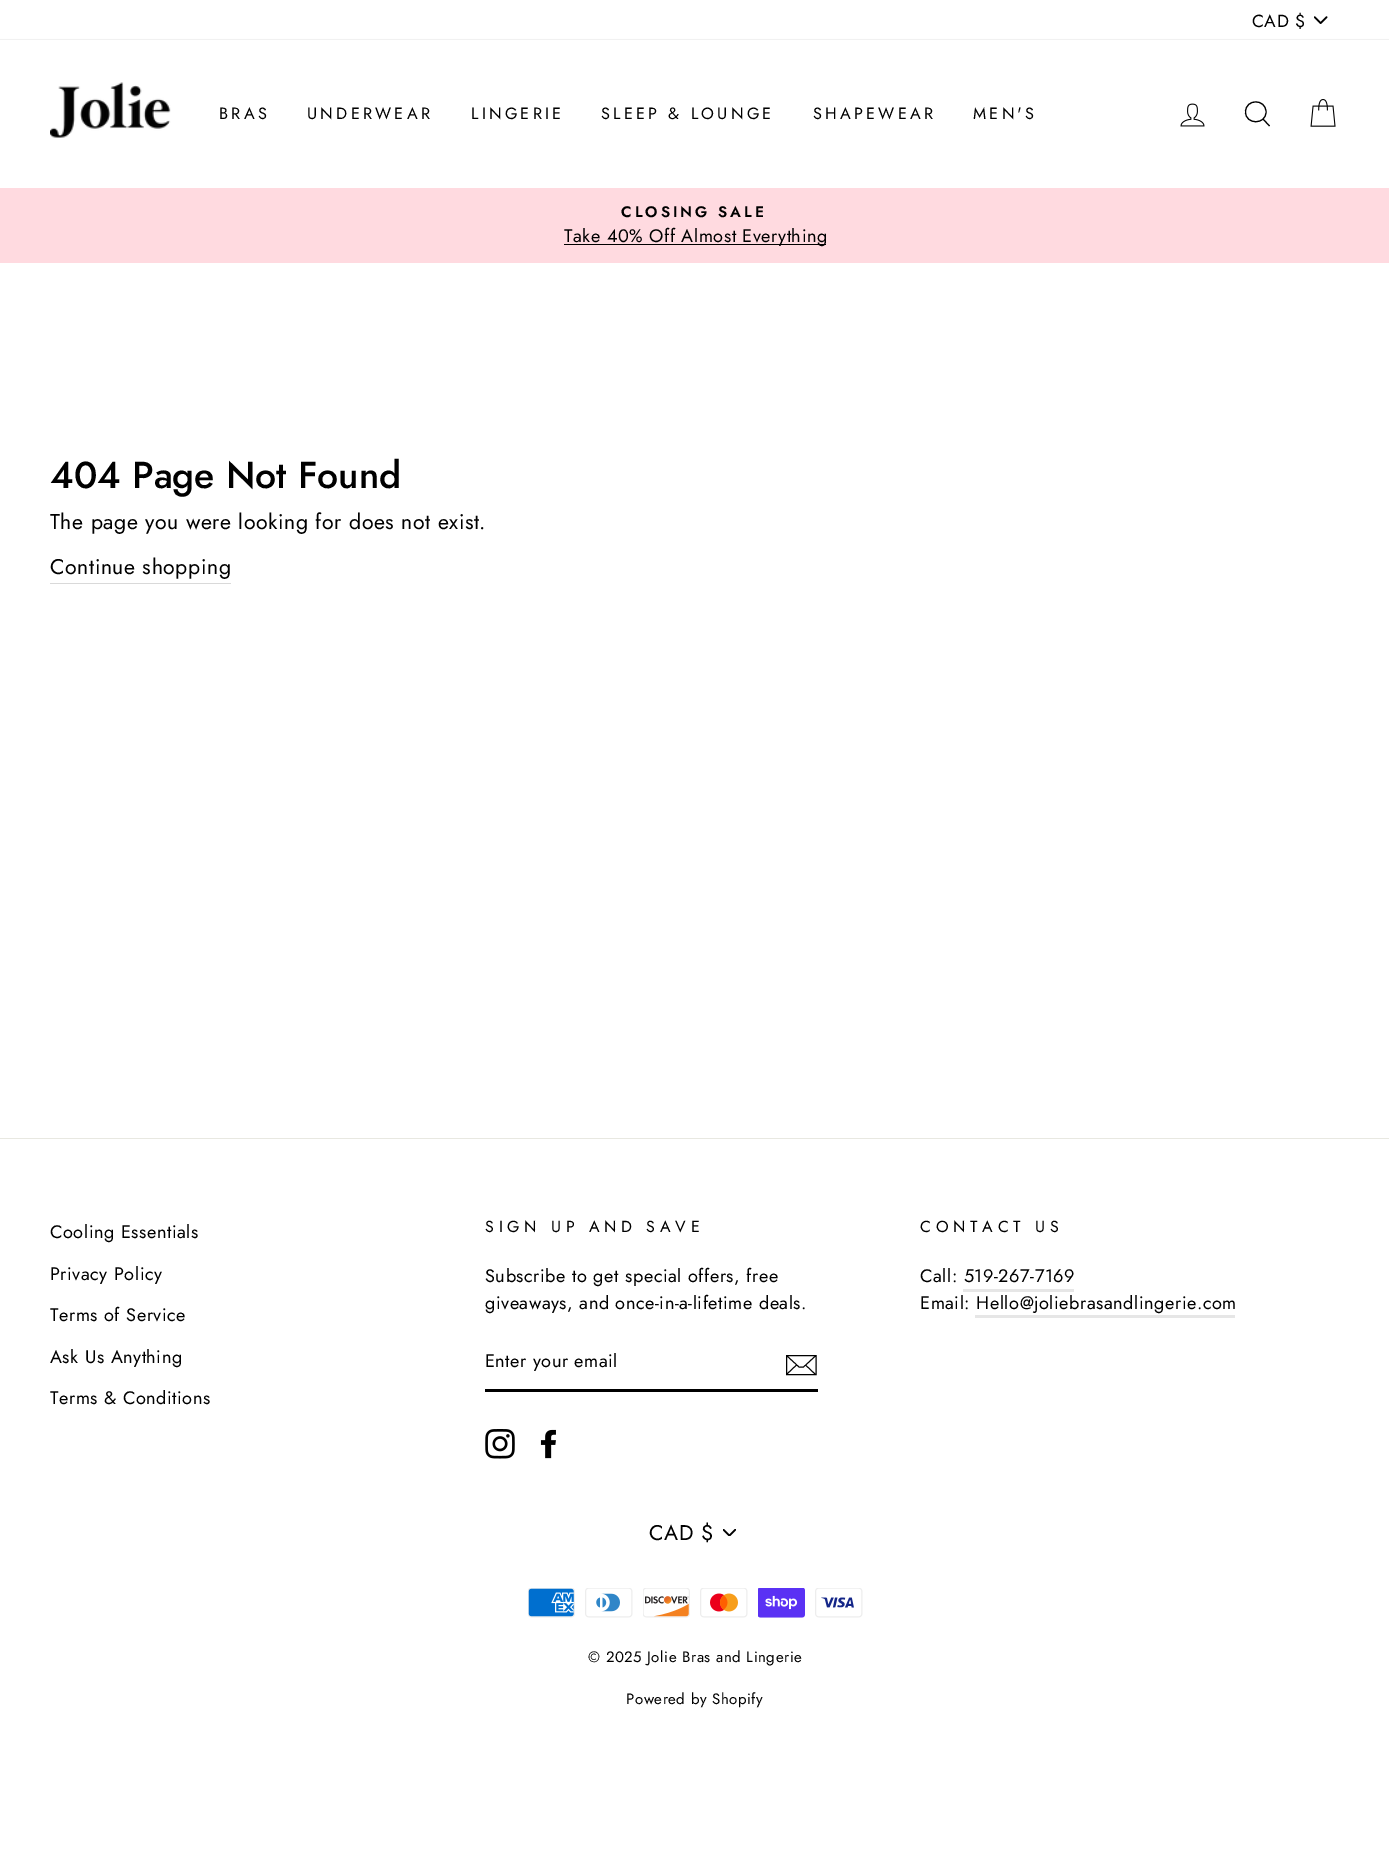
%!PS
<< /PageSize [1389 1870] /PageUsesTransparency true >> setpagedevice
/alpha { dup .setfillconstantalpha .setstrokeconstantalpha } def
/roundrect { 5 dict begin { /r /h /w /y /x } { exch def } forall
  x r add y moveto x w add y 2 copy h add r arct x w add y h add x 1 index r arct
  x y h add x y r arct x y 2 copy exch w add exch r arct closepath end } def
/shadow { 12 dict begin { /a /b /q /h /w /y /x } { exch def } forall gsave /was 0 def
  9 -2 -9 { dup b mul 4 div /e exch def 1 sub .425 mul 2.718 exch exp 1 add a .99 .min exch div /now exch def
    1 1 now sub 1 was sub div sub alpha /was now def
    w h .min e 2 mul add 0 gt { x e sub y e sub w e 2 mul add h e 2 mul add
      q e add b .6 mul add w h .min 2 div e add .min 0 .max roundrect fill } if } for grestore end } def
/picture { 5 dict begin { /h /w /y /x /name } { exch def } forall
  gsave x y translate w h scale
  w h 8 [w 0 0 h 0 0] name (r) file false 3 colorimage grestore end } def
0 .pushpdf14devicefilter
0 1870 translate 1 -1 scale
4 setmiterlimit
1 setgray
0 0 1389 1870 rectfill
(img1.rgb) 1314 16 14 8 picture
/Jost-Regular [17.5 0 0 -17.5 0 0] selectfont
0 setgray
1252 27 moveto 0.5 0 (CAD $) ashow
0 40 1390 148 0 0.5 0.2 shadow
1 setgray
0 40 1389 148 rectfill
(img2.rgb) 50 82 121 56 picture
/Jost-Regular [16.25 0 0 -16.25 0 0] selectfont
0 setgray
219 119 moveto 3.25 0 (BRAS) ashow
307 119 moveto 3.25 0 (UNDERWEAR) ashow
471 119 moveto 3.25 0 (LINGERIE) ashow
601 119 moveto 3.25 0 (SLEEP & LOUNGE) ashow
813 119 moveto 3.25 0 (SHAPEWEAR) ashow
973 119 moveto 3.25 0 (MEN'S) ashow
(img3.rgb) 1180 103 25 24 picture
1.1 setlinewidth
newpath 1266 112 moveto 1266 125 1245.5 125 1245.5 112 curveto 1245.5 98.5 1266 98.5 1266 112 curveto closepath 1269.5 126 moveto 1263 119 lineto stroke
(img4.rgb) 1310 99 26 28 picture
1 0.855 0.878 setrgbcolor
0 188 1389 75 rectfill
/Jost-SemiBold [15.25 0 0 -15.25 0 0] selectfont
0 setgray
621 217 moveto 3 0 (CLOSING SALE) ashow
564 244 262 1 rectfill
/Jost-Regular [18.1 0 0 -18.1 0 0] selectfont
564 242 moveto 0.55 0 (Take 40% Off Almost Everything) ashow
/Jost-Medium [37.5 0 0 -37.5 0 0] selectfont
50 488 moveto (404 Page Not Found) show
/Jost-Regular [21.25 0 0 -21.25 0 0] selectfont
50 529 moveto 0.55 0 (The page you were looking for does not exist.) ashow
0.851 setgray
50 583 181 1 rectfill
0 setgray
50 574 moveto 0.55 0 (Continue shopping) ashow
0.91 0.91 0.882 setrgbcolor
0 1138 1389 1 rectfill
/Jost-Regular [18.1 0 0 -18.1 0 0] selectfont
0 setgray
50 1238 moveto 0.55 0 (Cooling Essentials) ashow
50 1280 moveto 0.55 0 (Privacy Policy) ashow
50 1321 moveto 0.55 0 (Terms of Service) ashow
50 1363 moveto 0.55 0 (Ask Us Anything) ashow
50 1404 moveto 0.55 0 (Terms & Conditions) ashow
/Jost-Regular [16 0 0 -16 0 0] selectfont
485 1232 moveto 4.75 0 (SIGN UP AND SAVE) ashow
/Jost-Regular [18.1 0 0 -18.1 0 0] selectfont
485 1282 moveto 0.55 0 (Subscribe to get special offers, free) ashow
485 1309 moveto 0.55 0 (giveaways, and once-in-a-lifetime deals.) ashow
485 1389 333 3 rectfill
485 1367 moveto 0.5 0 (Enter your email) ashow
0.9 setlinewidth
newpath 816 1374.5 moveto 786.5 1374.5 lineto 786.5 1355.5 lineto 816 1355.5 lineto closepath 786.5 1355.5 moveto 799 1367 lineto 803.5 1367 lineto 816 1355.5 lineto 796.5 1365 moveto 787 1374 lineto 815.5 1374.5 moveto 805.5 1365 lineto stroke
(img5.rgb) 485 1429 30 30 picture
(img6.rgb) 540 1429 16 30 picture
/Jost-Regular [16 0 0 -16 0 0] selectfont
920 1232 moveto 4.75 0 (CONTACT US) ashow
/Jost-Regular [18.1 0 0 -18.1 0 0] selectfont
920 1282 moveto 0.55 0 (Call: 519-267-7169) ashow
0.902 setgray
963 1289 111 3 rectfill
0 setgray
920 1309 moveto 0.55 0 (Email: Hello@joliebrasandlingerie.com) ashow
0.902 setgray
975 1315 260 3 rectfill
(img7.rgb) 723 1529 13 7 picture
/Jost-Regular [21.25 0 0 -21.25 0 0] selectfont
0 setgray
649 1540 moveto 0.55 0 (CAD $) ashow
(img8.rgb) 528 1588 47 30 picture
(img9.rgb) 585 1588 48 30 picture
(img10.rgb) 643 1588 47 30 picture
(img11.rgb) 700 1588 48 30 picture
(img12.rgb) 758 1588 47 30 picture
(img13.rgb) 815 1588 48 30 picture
/Jost-Regular [15 0 0 -15 0 0] selectfont
588 1662 moveto 0.55 0 (© 2025 Jolie Bras and Lingerie) ashow
626 1704 moveto 0.55 0 (Powered by Shopify) ashow
.poppdf14devicefilter showpage
